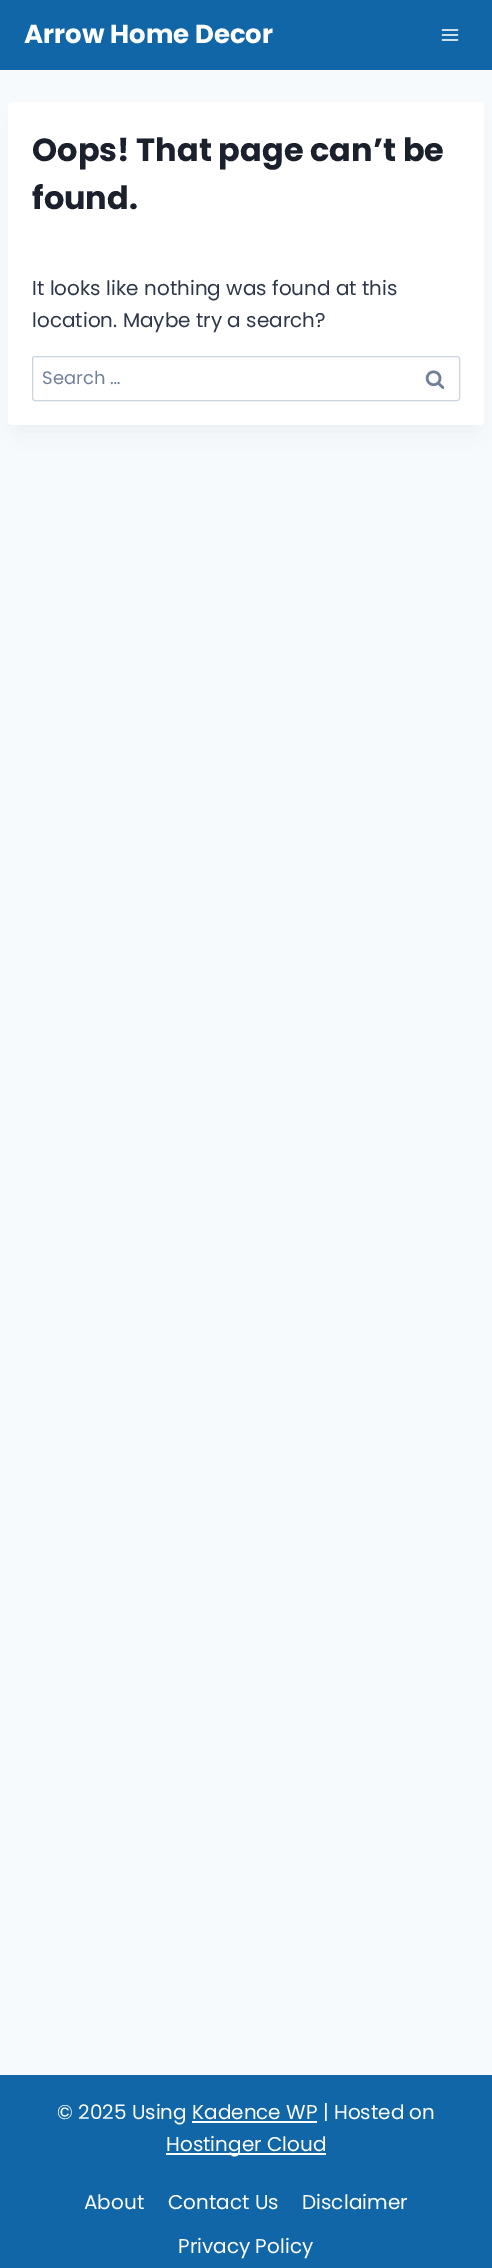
%!PS
<< /PageSize [492 2268] /PageUsesTransparency true >> setpagedevice
/alpha { dup .setfillconstantalpha .setstrokeconstantalpha } def
/roundrect { 5 dict begin { /r /h /w /y /x } { exch def } forall
  x r add y moveto x w add y 2 copy h add r arct x w add y h add x 1 index r arct
  x y h add x y r arct x y 2 copy exch w add exch r arct closepath end } def
/shadow { 12 dict begin { /a /b /q /h /w /y /x } { exch def } forall gsave /was 0 def
  9 -2 -9 { dup b mul 4 div /e exch def 1 sub .425 mul 2.718 exch exp 1 add a .99 .min exch div /now exch def
    1 1 now sub 1 was sub div sub alpha /was now def
    w h .min e 2 mul add 0 gt { x e sub y e sub w e 2 mul add h e 2 mul add
      q e add b .6 mul add w h .min 2 div e add .min 0 .max roundrect fill } if } for grestore end } def
/picture { 5 dict begin { /h /w /y /x /name } { exch def } forall
  gsave x y translate w h scale
  w h 8 [w 0 0 h 0 0] name (r) file false 3 colorimage grestore end } def
0 .pushpdf14devicefilter
0 2268 translate 1 -1 scale
4 setmiterlimit
0.969 0.98 0.988 setrgbcolor
0 0 492 2268 rectfill
0.063 0.4 0.655 setrgbcolor
0 0 492 70 rectfill
/Poppins-Bold [26 0 0 -26 0 0] selectfont
1 setgray
24 43 moveto (Arrow Home Decor) show
(img1.rgb) 441 29 18 12 picture
0 setgray
18 127 456 303 0 12.5 0.05 shadow
1 setgray
8 102 476 323 4 roundrect fill
/Poppins-Bold [32 0 0 -32 0 0] selectfont
0.102 0.125 0.173 setrgbcolor
32 161 moveto (Oops! That page can’t be) show
32 209 moveto (found.) show
/Poppins-Regular [20 0 0 -20 0 0] selectfont
0.176 0.216 0.282 setrgbcolor
32 295 moveto (It looks like nothing was found at this) show
32 327 moveto (location. Maybe try a search?) show
0.796 0.835 0.878 setrgbcolor
32.5 356.5 427 44 2.5 roundrect stroke
/Poppins-Regular [18 0 0 -18 0 0] selectfont
0.443 0.502 0.588 setrgbcolor
42 384 moveto (Search …) show
(img2.rgb) 425 370 20 19 picture
0.063 0.4 0.655 setrgbcolor
0 2075 492 193 rectfill
/Poppins-Regular [20 0 0 -20 0 0] selectfont
1 setgray
57 2119 moveto (© 2025 Using Kadence WP | Hosted on) show
192 2121 125 2 rectfill
166 2153 160 2 rectfill
166 2151 moveto (Hostinger Cloud) show
84 2209 moveto (About) show
168 2209 moveto (Contact Us) show
302 2209 moveto (Disclaimer) show
178 2253 moveto (Privacy Policy) show
.poppdf14devicefilter showpage
